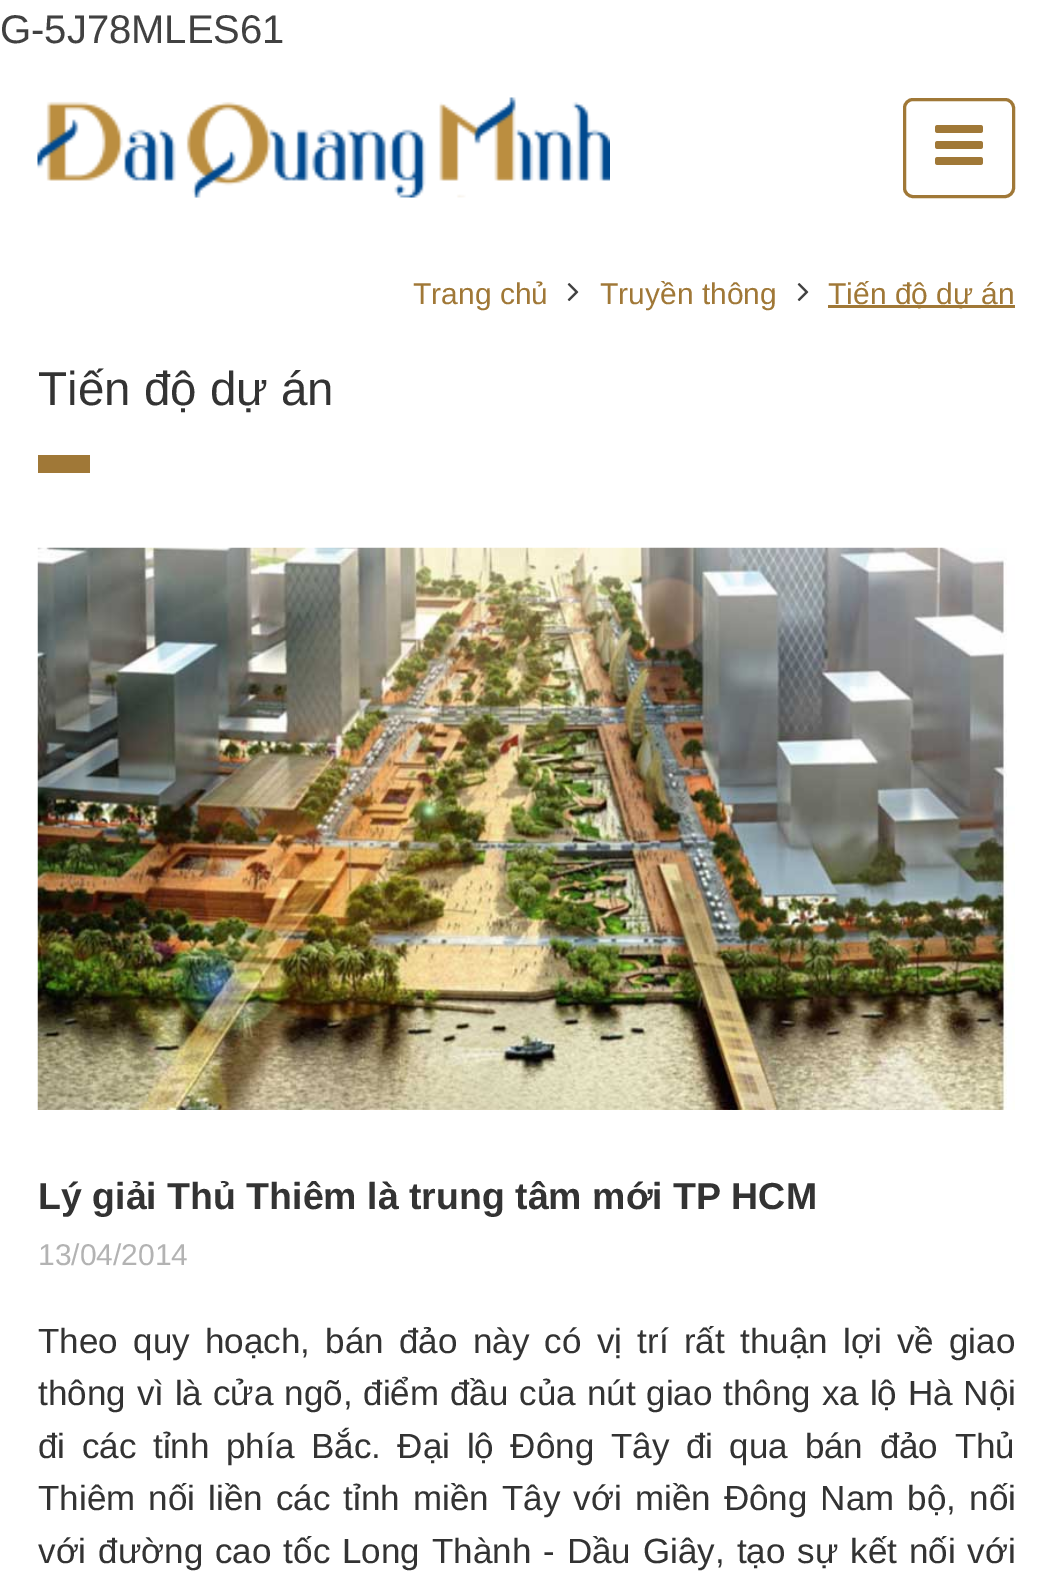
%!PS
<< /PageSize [1052 1582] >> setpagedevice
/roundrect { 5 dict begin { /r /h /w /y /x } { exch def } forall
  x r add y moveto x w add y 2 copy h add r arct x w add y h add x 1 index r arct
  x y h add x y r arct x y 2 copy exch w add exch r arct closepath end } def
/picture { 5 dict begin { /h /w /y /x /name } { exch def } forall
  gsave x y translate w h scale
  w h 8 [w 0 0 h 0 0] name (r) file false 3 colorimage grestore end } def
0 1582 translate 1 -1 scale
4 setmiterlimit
1 setgray
0 0 1052 1582 rectfill
/LiberationSans-Regular [40 0 0 -40 0 0] selectfont
0.255 setgray
0 43 moveto (G-5J78MLES61) show
(img1.rgb) 37 97 573 101 picture
0.627 0.471 0.216 setrgbcolor
3 setlinewidth
904.5 99.5 109 97 8.5 roundrect stroke
(img2.rgb) 935 125 48 40 picture
/LiberationSans-Regular [30 0 0 -30 0 0] selectfont
413 304 moveto (Trang chủ) show
(img3.rgb) 567 283 12 19 picture
600 304 moveto (Truyền thông) show
(img3.rgb) 797 283 12 19 picture
828 305 187 3 rectfill
828 304 moveto (Tiến độ dự án) show
/LiberationSans-Regular [47.5 0 0 -47.5 0 0] selectfont
0.2 setgray
38 405 moveto (Tiến độ dự án) show
0.627 0.471 0.216 setrgbcolor
38 455 52 18 rectfill
(img4.rgb) 37 547 978 563 picture
/LiberationSans-Bold [37.5 0 0 -37.5 0 0] selectfont
0.2 setgray
38 1209 moveto (Lý giải Thủ Thiêm là trung tâm mới TP HCM) show
/LiberationSans-Regular [30 0 0 -30 0 0] selectfont
0.702 setgray
38 1265 moveto (13/04/2014) show
/LiberationSans-Regular [35 0 0 -35 0 0] selectfont
0.2 setgray
38 1353 moveto 5.6 0 32 (Theo quy hoạch, bán đảo này có vị trí rất thuận lợi về giao) widthshow
38 1405 moveto 1.2 0 32 (thông vì là cửa ngõ, điểm đầu của nút giao thông xa lộ Hà Nội) widthshow
38 1458 moveto 6.9 0 32 (đi các tỉnh phía Bắc. Đại lộ Đông Tây đi qua bán đảo Thủ) widthshow
38 1510 moveto 3.4 0 32 (Thiêm nối liền các tỉnh miền Tây với miền Đông Nam bộ, nối) widthshow
38 1563 moveto 2.25 0 32 (với đường cao tốc Long Thành - Dầu Giây, tạo sự kết nối với) widthshow
showpage
